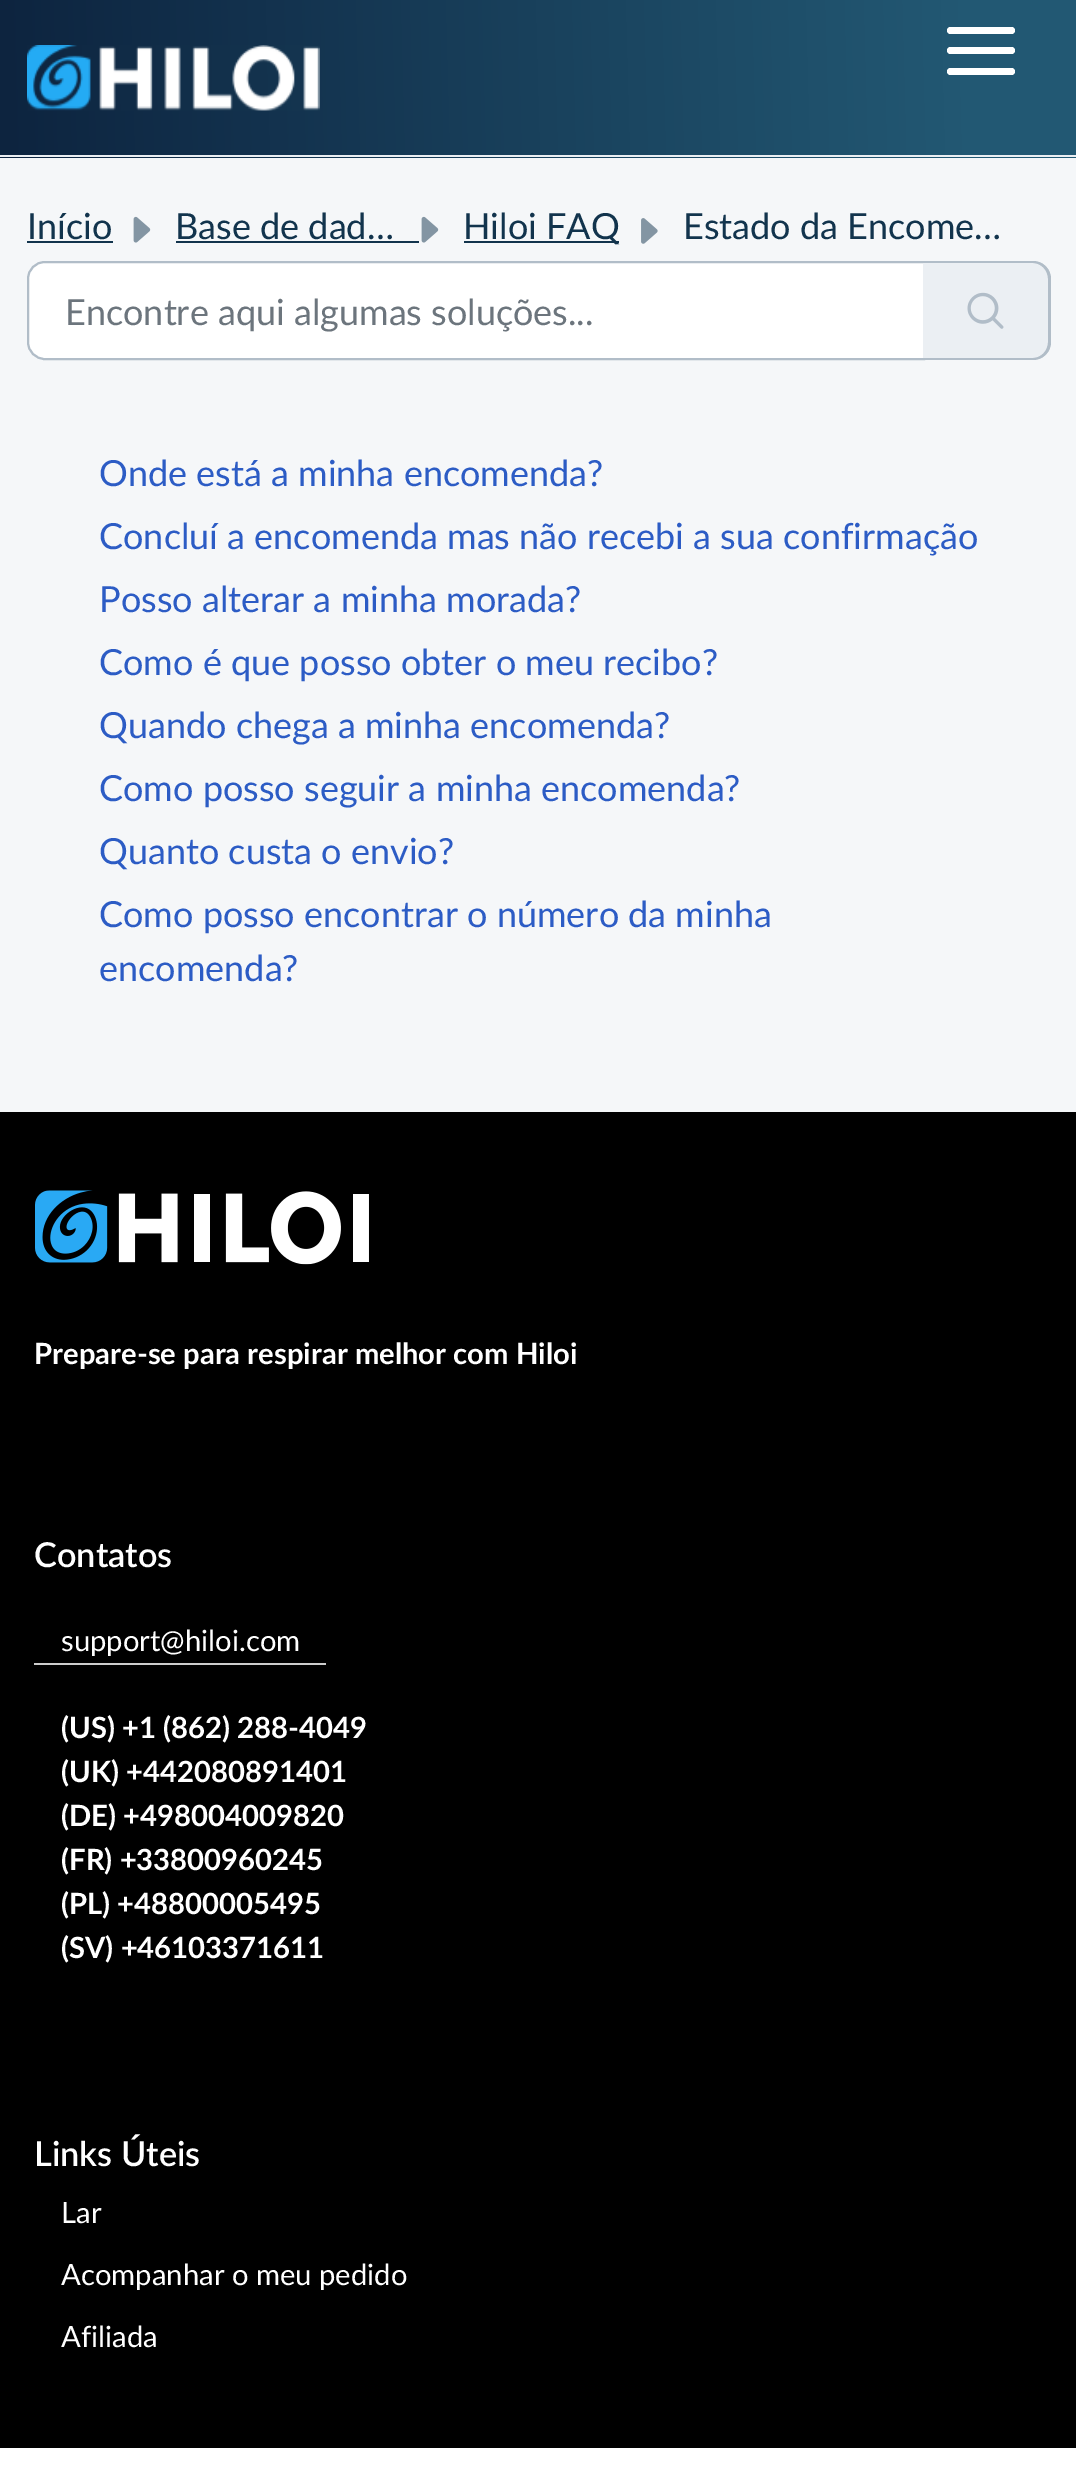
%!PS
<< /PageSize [1076 2469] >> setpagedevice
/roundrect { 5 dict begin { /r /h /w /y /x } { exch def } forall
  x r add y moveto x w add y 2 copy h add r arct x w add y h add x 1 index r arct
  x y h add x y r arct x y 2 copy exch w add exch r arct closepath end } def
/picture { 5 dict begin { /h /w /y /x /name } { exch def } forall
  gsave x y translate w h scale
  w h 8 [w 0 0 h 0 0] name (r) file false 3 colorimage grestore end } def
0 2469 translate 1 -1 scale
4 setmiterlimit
0.961 0.969 0.976 setrgbcolor
0 0 1076 2469 rectfill
gsave newpath 0 0 moveto 1076 0 lineto 1076 155 lineto 0 155 lineto closepath clip newpath
<< /ShadingType 2 /ColorSpace /DeviceRGB /Coords [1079 63 -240 99] /Extend [true true] /Function << /FunctionType 3 /Domain [0 1] /Functions [<< /FunctionType 2 /Domain [0 1] /C0 [0.133 0.345 0.451] /C1 [0.133 0.345 0.451] /N 1 >> << /FunctionType 2 /Domain [0 1] /C0 [0.133 0.345 0.451] /C1 [0.031 0.09 0.196] /N 1 >>] /Bounds [0.09] /Encode [0 1 0 1] >> >> shfill grestore
gsave newpath 0 157 moveto 1076 157 lineto 1076 158 lineto 0 158 lineto closepath clip newpath
<< /ShadingType 2 /ColorSpace /DeviceRGB /Coords [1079 218 -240 255] /Extend [true true] /Function << /FunctionType 3 /Domain [0 1] /Functions [<< /FunctionType 2 /Domain [0 1] /C0 [0.133 0.345 0.451] /C1 [0.133 0.345 0.451] /N 1 >> << /FunctionType 2 /Domain [0 1] /C0 [0.133 0.345 0.451] /C1 [0.031 0.09 0.196] /N 1 >>] /Bounds [0.09] /Encode [0 1 0 1] >> >> shfill grestore
0.922 0.937 0.953 setrgbcolor
0 155 1076 2 rectfill
(img1.rgb) 27 45 293 66 picture
1 setgray
947 27 68 7 3.5 roundrect fill
947 47 68 7 3.5 roundrect fill
947 68 68 7 3.5 roundrect fill
/Lato-Regular [36 0 0 -36 0 0] selectfont
0.071 0.204 0.302 setrgbcolor
27 239 moveto (Início) show
27 241 86 2 rectfill
(img2.rgb) 133 216 18 27 picture
175 239 moveto (Base de dad…) show
176 241 243 2 rectfill
(img2.rgb) 421 216 18 27 picture
464 241 155 2 rectfill
463 239 moveto (Hiloi FAQ) show
(img3.rgb) 641 218 17 26 picture
683 239 moveto (Estado da Encome…) show
1 setgray
newpath 45 262 moveto 924 262 lineto 924 359 lineto 45 359 lineto 35.5 359 28 351.5 28 342 curveto 28 279 lineto 28 269.5 35.5 262 45 262 curveto closepath gsave fill grestore
0.694 0.741 0.784 setrgbcolor
2 setlinewidth
stroke
0.424 0.459 0.49 setrgbcolor
65 325 moveto (Encontre aqui algumas soluções...) show
0.922 0.937 0.953 setrgbcolor
newpath 923 261 moveto 1033 261 lineto 1043 261 1051 269 1051 279 curveto 1051 342 lineto 1051 352 1043 360 1033 360 curveto 923 360 lineto closepath fill
0.694 0.741 0.784 setrgbcolor
newpath 922 261 moveto 1033 261 lineto 1043 261 1051 269 1051 279 curveto 1051 342 lineto 1051 352 1043 360 1033 360 curveto 922 360 lineto closepath 922 263 moveto 1033 263 lineto 1041 263 1048 270 1048 279 curveto 1048 342 lineto 1048 351 1041 358 1033 358 curveto 922 358 lineto closepath eofill
(img4.rgb) 967 292 37 37 picture
0.173 0.361 0.773 setrgbcolor
99 486 moveto (Onde está a minha encomenda?) show
99 549 moveto (Concluí a encomenda mas não recebi a sua confirmação) show
99 612 moveto (Posso alterar a minha morada?) show
99 675 moveto (Como é que posso obter o meu recibo?) show
99 738 moveto (Quando chega a minha encomenda?) show
99 801 moveto (Como posso seguir a minha encomenda?) show
99 864 moveto (Quanto custa o envio?) show
99 927 moveto (Como posso encontrar o número da minha) show
99 981 moveto (encomenda?) show
0 setgray
0 1112 1076 1336 rectfill
(img5.rgb) 35 1190 334 75 picture
/Lato-Bold [29.25 0 0 -29.25 0 0] selectfont
1 setgray
34 1364 moveto (Prepare-se para respirar melhor com Hiloi) show
/Lato-SemiBold [34.25 0 0 -34.25 0 0] selectfont
34 1567 moveto (Contatos) show
0.8 setgray
34 1663 292 2 rectfill
/Lato-Regular [29.25 0 0 -29.25 0 0] selectfont
1 setgray
61 1651 moveto (support@hiloi.com) show
/Lato-Bold [29.25 0 0 -29.25 0 0] selectfont
61 1738 moveto (\(US\) +1 \(862\) 288-4049) show
61 1782 moveto (\(UK\) +442080891401) show
61 1826 moveto (\(DE\) +498004009820) show
61 1870 moveto (\(FR\) +33800960245) show
61 1914 moveto (\(PL\) +48800005495) show
61 1958 moveto (\(SV\) +46103371611) show
/Lato-SemiBold [34.25 0 0 -34.25 0 0] selectfont
34 2166 moveto (Links Úteis) show
/Lato-Regular [29.25 0 0 -29.25 0 0] selectfont
61 2223 moveto (Lar) show
61 2285 moveto (Acompanhar o meu pedido) show
61 2347 moveto (Afiliada) show
0 2448 1076 21 rectfill
showpage
